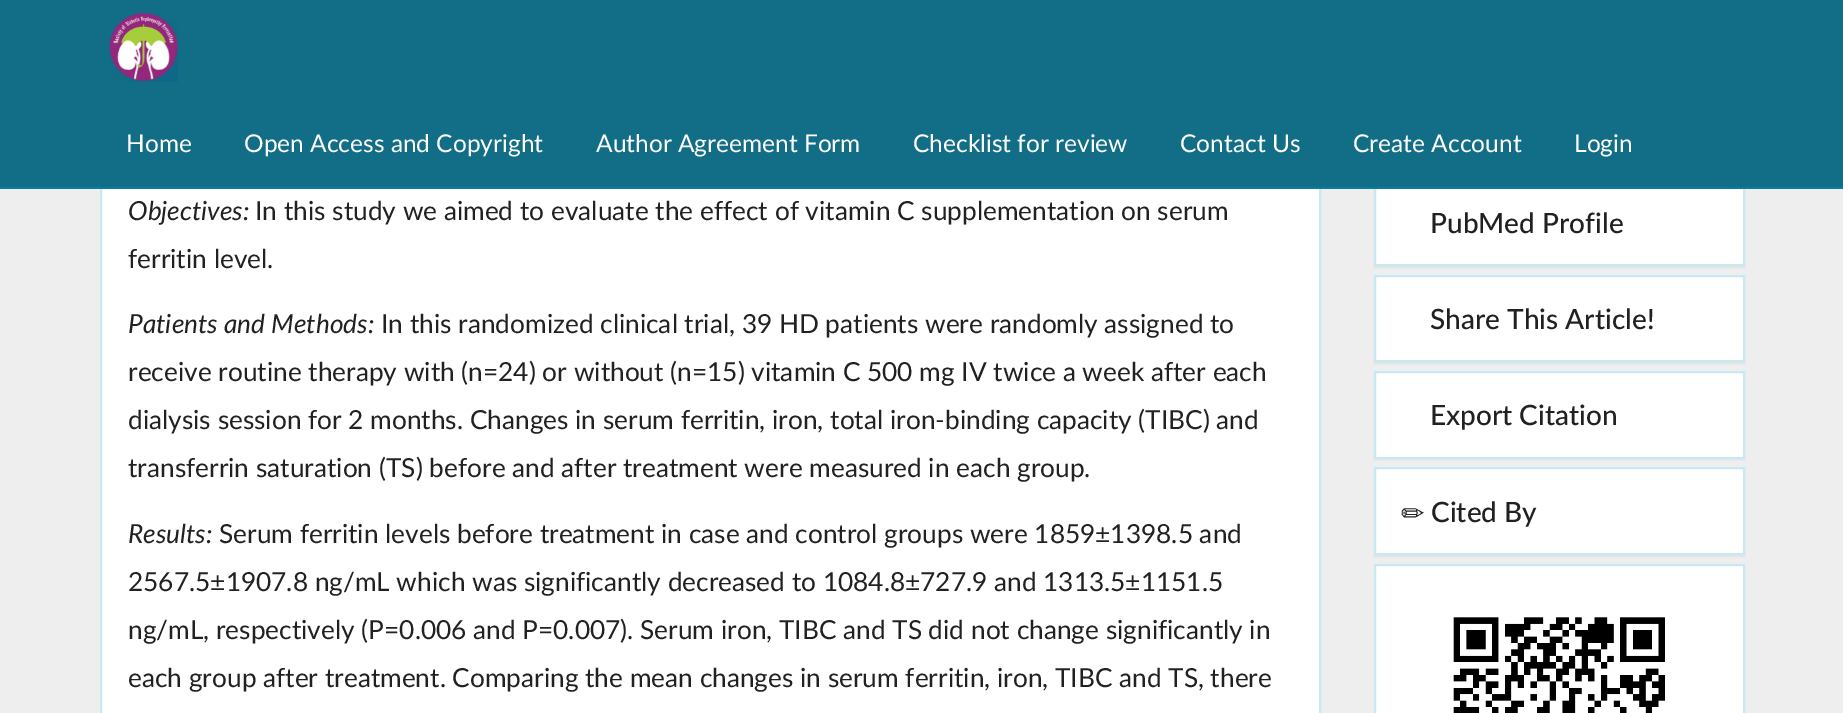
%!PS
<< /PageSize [1843 713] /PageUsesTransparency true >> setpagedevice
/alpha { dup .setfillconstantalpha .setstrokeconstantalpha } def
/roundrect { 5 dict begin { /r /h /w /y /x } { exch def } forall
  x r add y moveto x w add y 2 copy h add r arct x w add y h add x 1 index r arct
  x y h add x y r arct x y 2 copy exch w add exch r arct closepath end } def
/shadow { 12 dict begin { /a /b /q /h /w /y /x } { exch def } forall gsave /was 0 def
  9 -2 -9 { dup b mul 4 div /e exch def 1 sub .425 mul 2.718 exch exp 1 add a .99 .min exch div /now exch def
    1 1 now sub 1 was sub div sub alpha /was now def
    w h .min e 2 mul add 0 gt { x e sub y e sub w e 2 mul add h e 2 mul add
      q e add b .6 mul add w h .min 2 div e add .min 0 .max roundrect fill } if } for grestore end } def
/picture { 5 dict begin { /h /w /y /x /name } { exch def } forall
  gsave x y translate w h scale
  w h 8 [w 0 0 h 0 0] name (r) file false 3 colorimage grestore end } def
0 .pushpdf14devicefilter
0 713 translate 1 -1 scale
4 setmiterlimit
0.933 setgray
0 0 1843 713 rectfill
1 setgray
102 189 1217 524 rectfill
0.78 0.914 0.957 setrgbcolor
2 setlinewidth
101 -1 1219 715 rectstroke
0 setgray
1374 180 371 88 0 1 0.05 shadow
1 setgray
1376 189 367 75 rectfill
0.78 0.914 0.957 setrgbcolor
1375 180 369 85 rectstroke
0.071 0.427 0.525 setrgbcolor
0 0 1843 187 rectfill
0.051 0.482 0.608 setrgbcolor
0 187 1843 2 rectfill
(img1.rgb) 109 13 69 69 picture
/Lato-Regular [24.5 0 0 -24.5 0 0] selectfont
1 setgray
126 152 moveto (Home) show
244 152 moveto (Open Access and Copyright) show
596 152 moveto (Author Agreement Form) show
913 152 moveto (Checklist for review) show
1180 152 moveto (Contact Us) show
1353 152 moveto (Create Account) show
1574 152 moveto (Login) show
/Lato-Italic [26.25 0 0 -26.25 0 0] selectfont
0.129 setgray
128 220 moveto (Objectives:) show
/Lato-Regular [26.25 0 0 -26.25 0 0] selectfont
255 220 moveto (In this study we aimed to evaluate the effect of vitamin C supplementation on serum) show
128 268 moveto (ferritin level.) show
/Lato-Italic [26.25 0 0 -26.25 0 0] selectfont
128 333 moveto (Patients and Methods:) show
/Lato-Regular [26.25 0 0 -26.25 0 0] selectfont
381 333 moveto (In this randomized clinical trial, 39 HD patients were randomly assigned to) show
128 381 moveto (receive routine therapy with \(n=24\) or without \(n=15\) vitamin C 500 mg IV twice a week after each) show
128 429 moveto (dialysis session for 2 months. Changes in serum ferritin, iron, total iron-binding capacity \(TIBC\) and) show
128 477 moveto (transferrin saturation \(TS\) before and after treatment were measured in each group.) show
/Lato-Italic [26.25 0 0 -26.25 0 0] selectfont
128 543 moveto (Results:) show
/Lato-Regular [26.25 0 0 -26.25 0 0] selectfont
219 543 moveto (Serum ferritin levels before treatment in case and control groups were 1859±1398.5 and) show
128 591 moveto (2567.5±1907.8 ng/mL which was significantly decreased to 1084.8±727.9 and 1313.5±1151.5) show
128 639 moveto (ng/mL, respectively \(P=0.006 and P=0.007\). Serum iron, TIBC and TS did not change significantly in) show
128 687 moveto (each group after treatment. Comparing the mean changes in serum ferritin, iron, TIBC and TS, there) show
/Lato-Medium [28 0 0 -28 0 0] selectfont
1430 233 moveto (PubMed Profile) show
0 setgray
1374 277 371 87 0 1 0.05 shadow
1 setgray
newpath 1375 276 moveto 1744 276 lineto 1744 361 lineto 1375 361 lineto closepath gsave fill grestore
0.78 0.914 0.957 setrgbcolor
stroke
0.129 setgray
1430 329 moveto (Share This Article!) show
0 setgray
1374 373 371 87 0 1 0.05 shadow
1 setgray
newpath 1375 372 moveto 1744 372 lineto 1744 458 lineto 1375 458 lineto closepath gsave fill grestore
0.78 0.914 0.957 setrgbcolor
stroke
0.129 setgray
1430 425 moveto (Export Citation) show
0 setgray
1374 469 371 88 0 1 0.05 shadow
1 setgray
newpath 1375 468 moveto 1744 468 lineto 1744 554 lineto 1375 554 lineto closepath gsave fill grestore
0.78 0.914 0.957 setrgbcolor
stroke
/DejaVuSans-Regular [28 0 0 -28 0 0] selectfont
0.129 setgray
1401 523 moveto (✏) show
/Lato-Medium [28 0 0 -28 0 0] selectfont
1431 522 moveto (Cited By) show
1 setgray
newpath 1375 565 moveto 1744 565 lineto 1744 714 lineto 1375 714 lineto closepath gsave fill grestore
0.78 0.914 0.957 setrgbcolor
stroke
(img2.rgb) 1453 617 212 96 picture
.poppdf14devicefilter showpage
